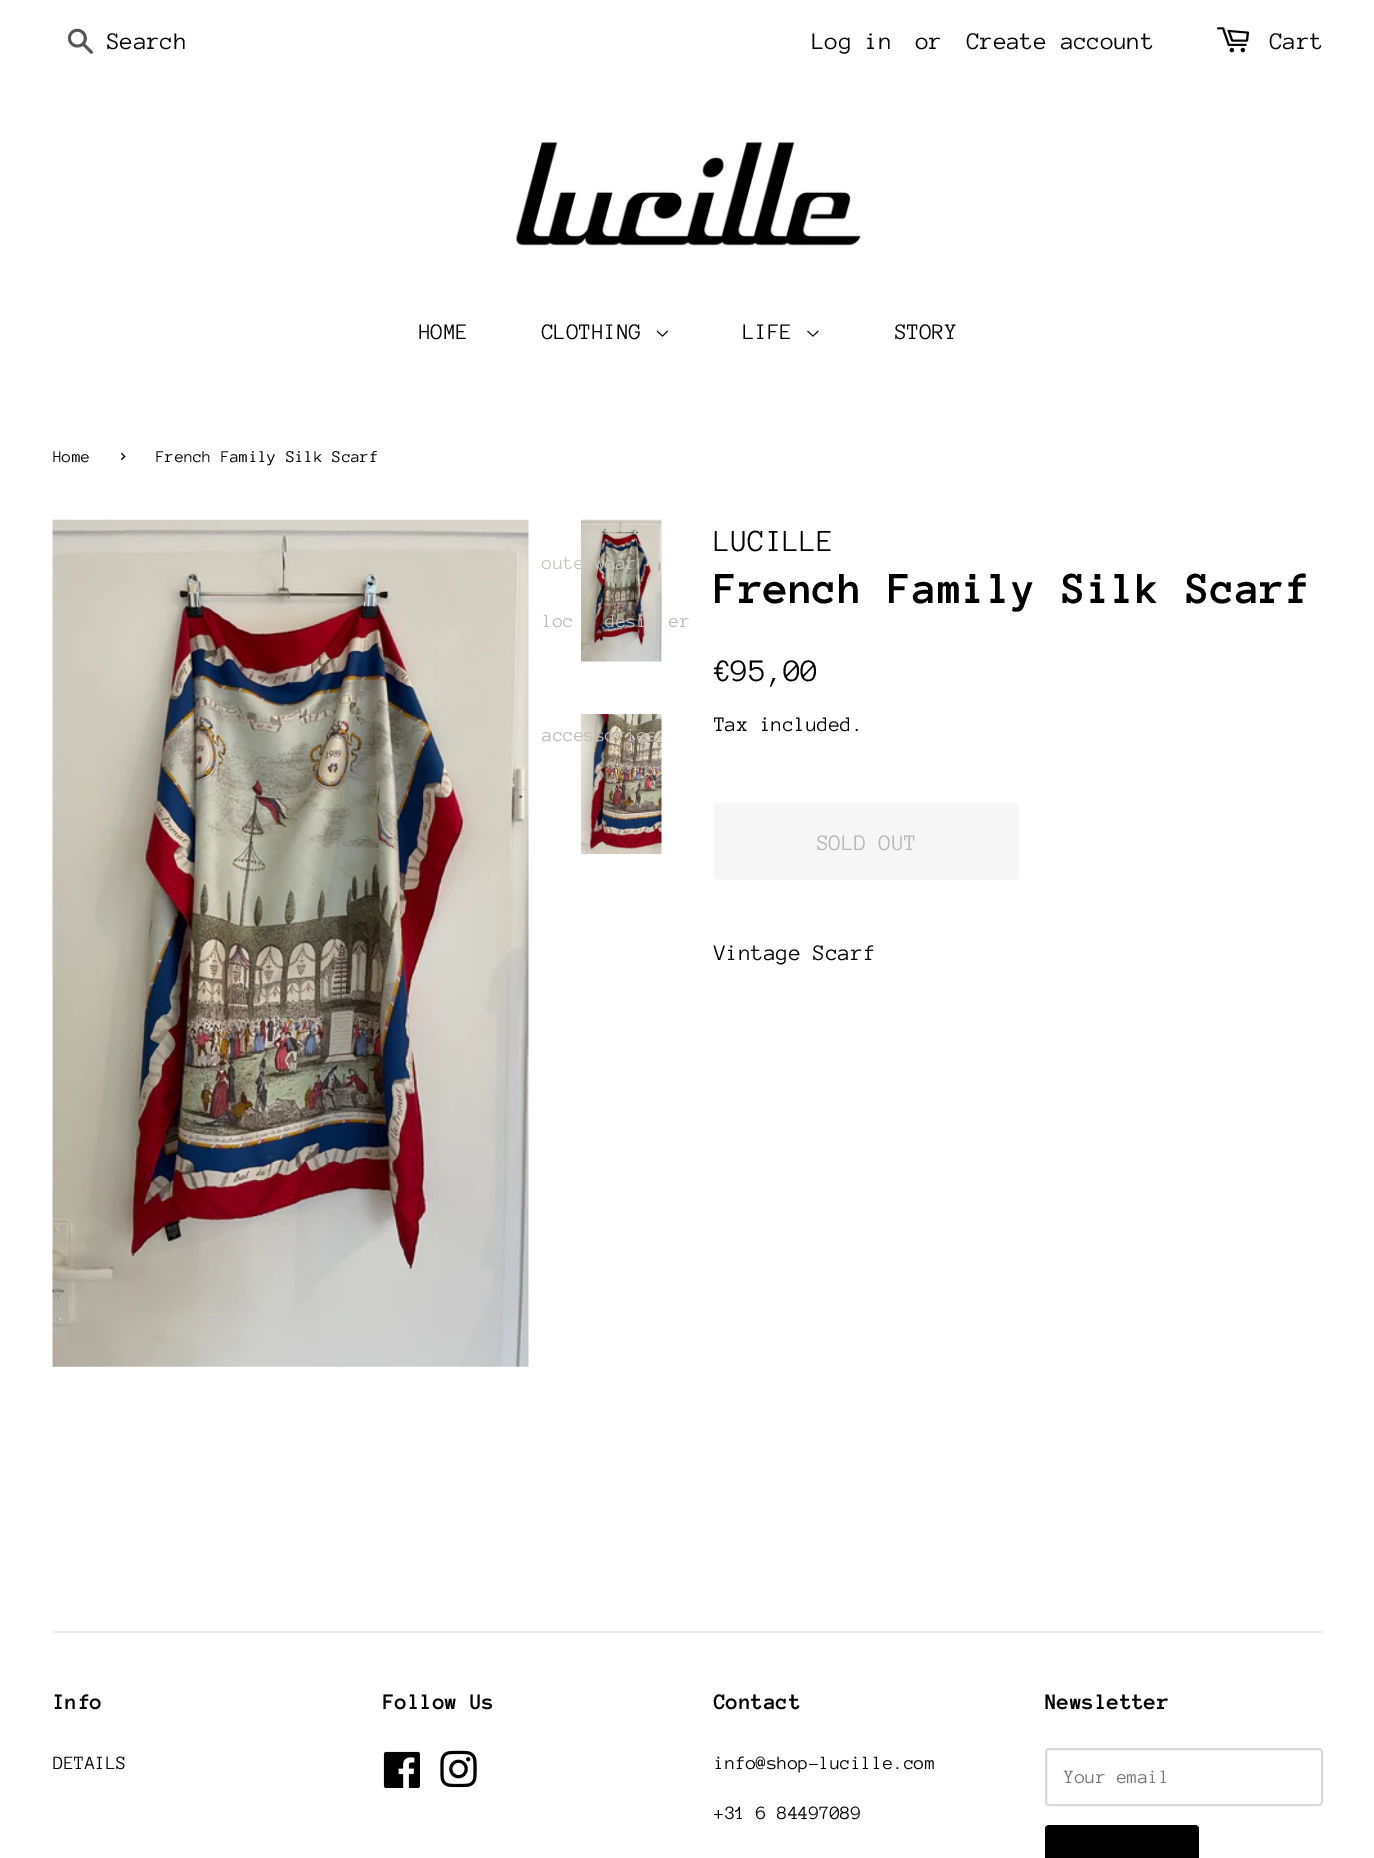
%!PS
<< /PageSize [1374 1858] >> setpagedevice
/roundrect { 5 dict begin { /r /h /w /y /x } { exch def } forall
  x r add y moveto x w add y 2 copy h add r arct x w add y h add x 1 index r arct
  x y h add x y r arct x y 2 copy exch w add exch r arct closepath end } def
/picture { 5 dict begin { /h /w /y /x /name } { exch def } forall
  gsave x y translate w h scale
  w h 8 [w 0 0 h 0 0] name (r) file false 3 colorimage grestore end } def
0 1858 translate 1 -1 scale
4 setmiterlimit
1 setgray
0 0 1374 1858 rectfill
(img1.rgb) 67 28 27 26 picture
/AnonymousPro-Regular [24.5 0 0 -24.5 0 0] selectfont
0 setgray
107 49 moveto (Search) show
812 49 moveto (Log in) show
916 49 moveto (or) show
967 49 moveto (Create account) show
(img2.rgb) 1217 27 32 26 picture
1270 49 moveto (Cart) show
(img3.rgb) 515 142 347 105 picture
/AnonymousPro-Regular [22.75 0 0 -22.75 0 0] selectfont
419 339 moveto (HOME) show
542 339 moveto (CLOTHING) show
(img4.rgb) 656 330 12 7 picture
(img7.rgb) 581 519 81 143 picture
/AnonymousPro-Regular [19.3 0 0 -19.3 0 0] selectfont
0.776 0.769 0.741 setrgbcolor
542 569 moveto (outerwear) show
0.749 0.725 0.725 setrgbcolor
542 627 moveto (loc) show
605 627 moveto (desi) show
669 627 moveto (er) show
(img8.rgb) 581 714 81 140 picture
542 741 moveto (accessories) show
/AnonymousPro-Regular [22.75 0 0 -22.75 0 0] selectfont
0 setgray
743 339 moveto (LIFE) show
(img5.rgb) 807 330 12 7 picture
895 339 moveto (STORY) show
/AnonymousPro-Regular [17 0 0 -17 0 0] selectfont
53 462 moveto (Home) show
/AnonymousPro-Regular [24 0 0 -24 0 0] selectfont
117 462 moveto (›) show
/AnonymousPro-Regular [17 0 0 -17 0 0] selectfont
156 462 moveto (French Family Silk Scarf) show
(img6.rgb) 52 519 477 848 picture
/AnonymousPro-Regular [31.5 0 0 -31.5 0 0] selectfont
714 551 moveto (LUCILLE) show
/AnonymousPro-Bold [45.5 0 0 -45.5 0 0] selectfont
714 603 moveto (French Family Silk Scarf) show
/AnonymousPro-Regular [32 0 0 -32 0 0] selectfont
714 681 moveto (€95,00) show
/AnonymousPro-Regular [21 0 0 -21 0 0] selectfont
714 731 moveto (Tax included.) show
0.965 setgray
714 803 305 77 4 roundrect fill
/AnonymousPro-Regular [22.75 0 0 -22.75 0 0] selectfont
0.714 setgray
817 850 moveto (SOLD OUT) show
0 setgray
714 960 moveto (Vintage Scarf) show
0.922 setgray
53 1631 1270 2 rectfill
/AnonymousPro-Bold [22.75 0 0 -22.75 0 0] selectfont
0 setgray
53 1709 moveto (Info) show
/AnonymousPro-Regular [19.3 0 0 -19.3 0 0] selectfont
53 1769 moveto (DETAILS) show
/AnonymousPro-Bold [22.75 0 0 -22.75 0 0] selectfont
383 1709 moveto (Follow Us) show
(img9.rgb) 383 1751 37 37 picture
(img10.rgb) 440 1750 37 38 picture
714 1709 moveto (Contact) show
/AnonymousPro-Regular [19.3 0 0 -19.3 0 0] selectfont
714 1769 moveto (info@shop-lucille.com) show
714 1819 moveto (+31 6 84497089) show
/AnonymousPro-Bold [22.75 0 0 -22.75 0 0] selectfont
1045 1709 moveto (Newsletter) show
0.851 setgray
2 setlinewidth
1046 1749 276 56 3 roundrect stroke
/AnonymousPro-Regular [19.3 0 0 -19.3 0 0] selectfont
0.459 setgray
1064 1783 moveto (Your email) show
0 setgray
1045 1825 154 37 4 roundrect fill
showpage
